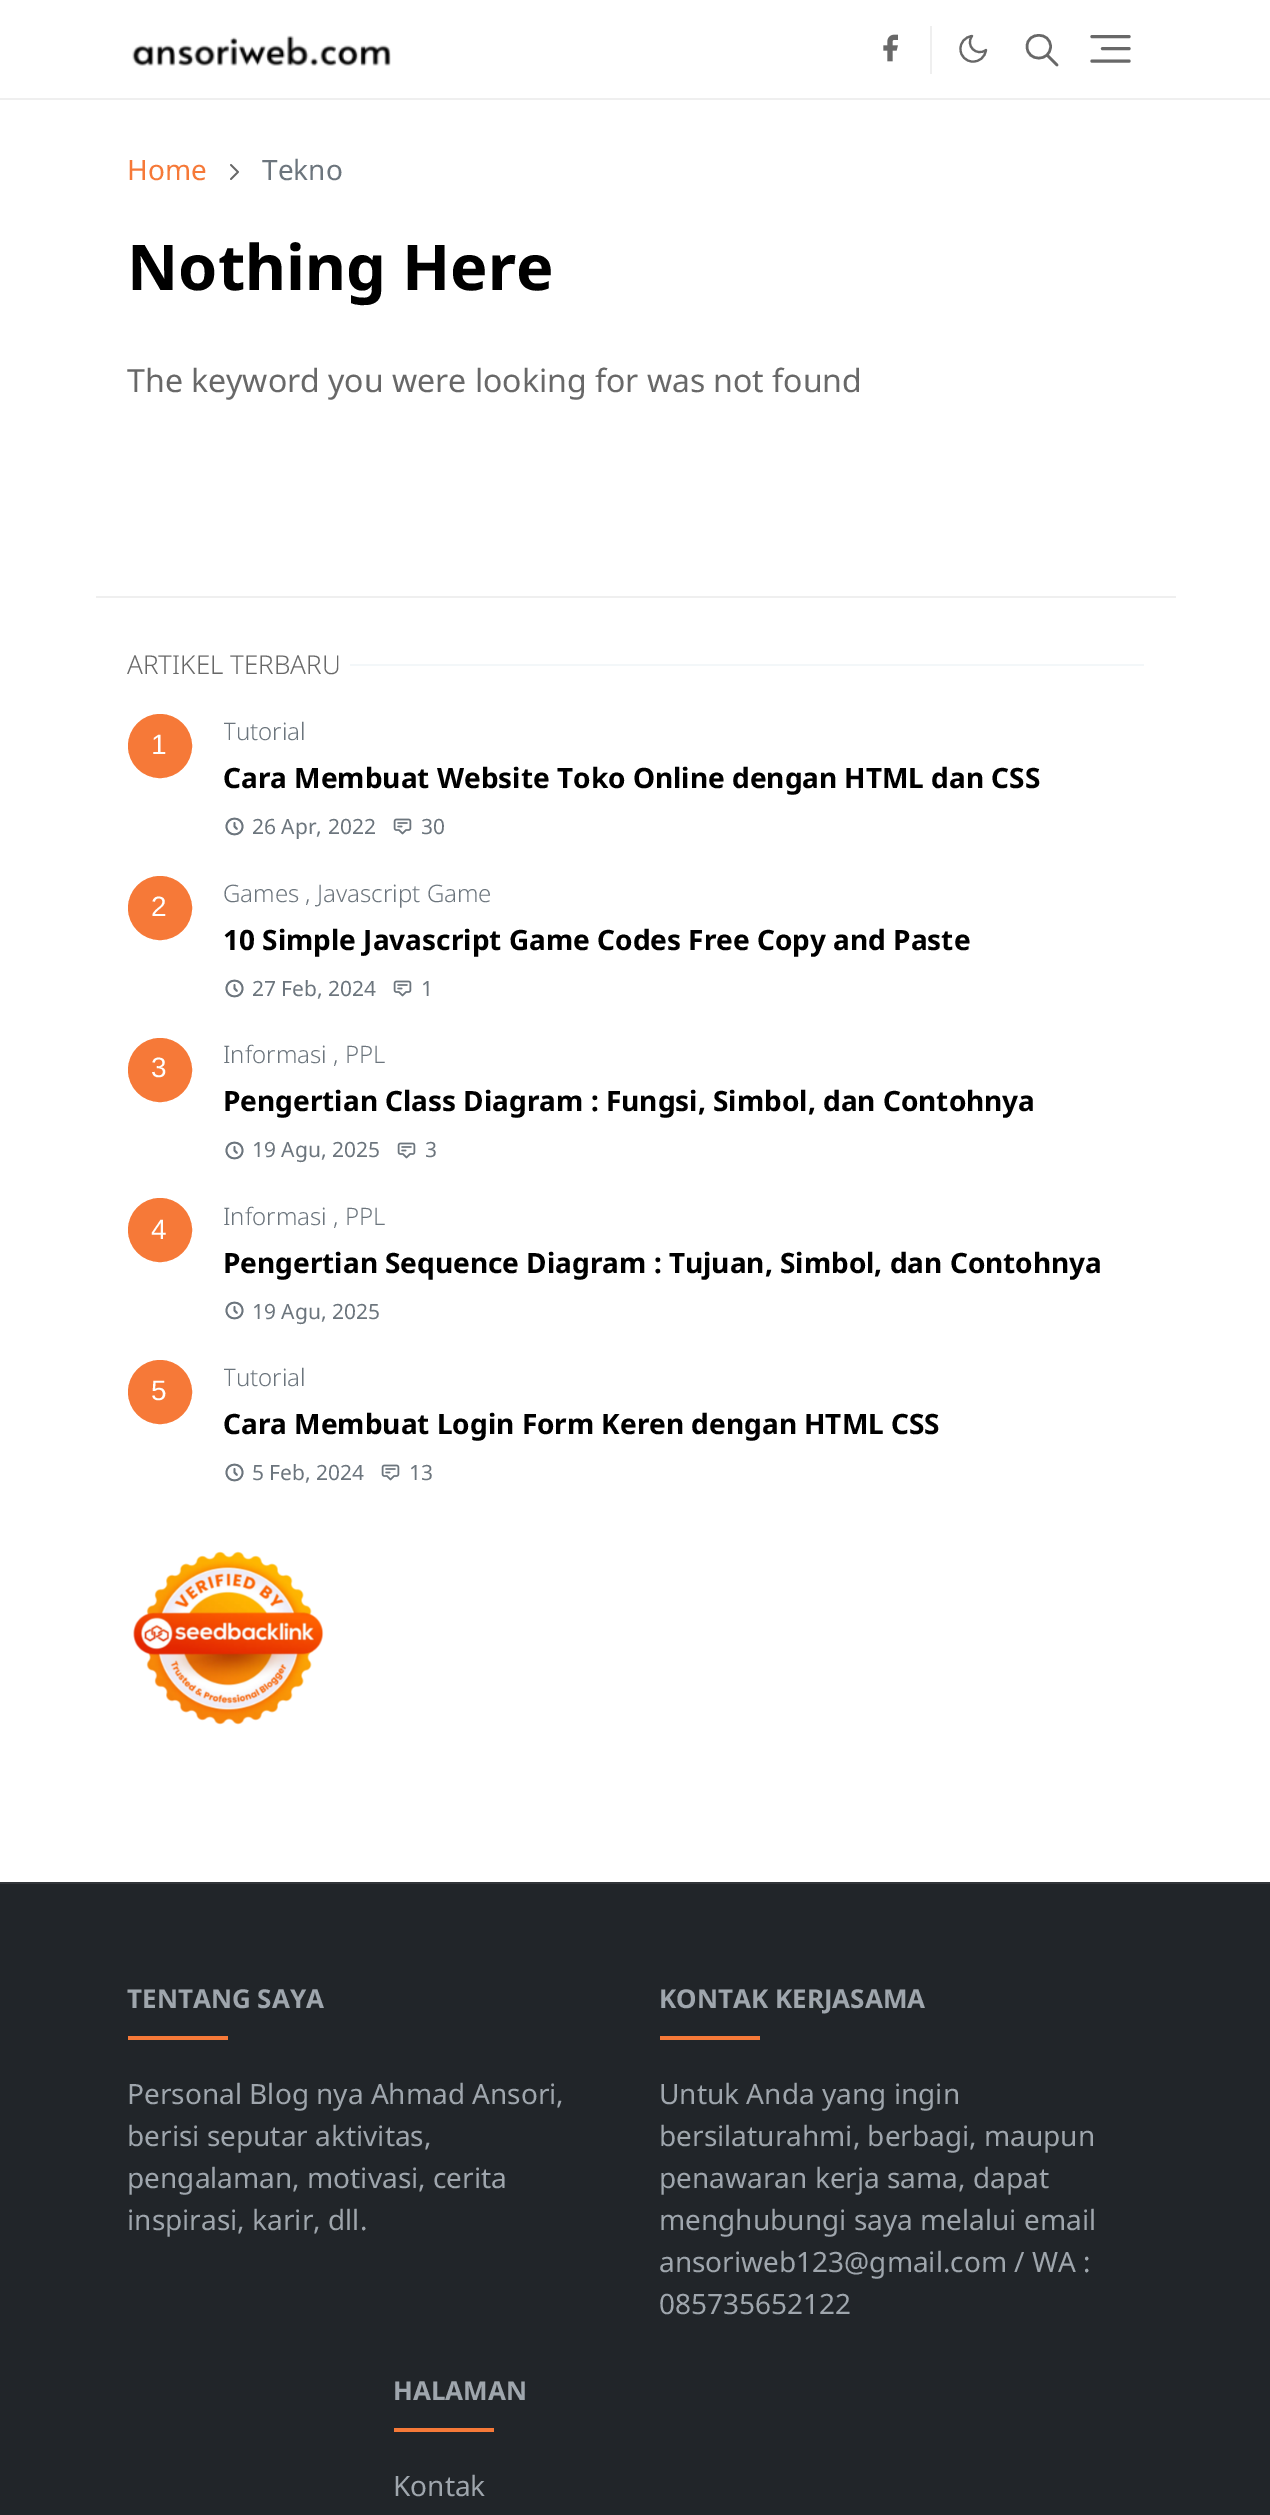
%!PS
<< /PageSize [1270 2515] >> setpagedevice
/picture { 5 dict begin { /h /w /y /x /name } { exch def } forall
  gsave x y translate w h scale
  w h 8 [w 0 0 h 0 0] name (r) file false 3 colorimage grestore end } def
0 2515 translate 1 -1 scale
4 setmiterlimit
1 setgray
0 0 1270 2515 rectfill
0.937 setgray
0 98 1270 2 rectfill
(img1.rgb) 132 35 259 31 picture
930 26 2 48 rectfill
(img2.rgb) 883 34 15 28 picture
0.408 setgray
2.1 setlinewidth
1 setlinecap
1 setlinejoin
newpath 986 50 moveto 985 57 979.5 62 972.5 61.5 curveto 966 61.5 960.5 56 960.5 49.5 curveto 960 42.5 965 37 972 36 curveto 965 45.5 976.5 57 986 50 curveto closepath stroke
2.5 setlinewidth
newpath 1057 65 moveto 1047 55 lineto 1050.5 46.5 moveto 1050.5 62 1027 62 1027 46.5 curveto 1027 31.5 1050.5 31.5 1050.5 46.5 curveto closepath stroke
3.1 setlinewidth
newpath 1092 36.5 moveto 1129 36.5 lineto 1102.5 48.5 moveto 1129 48.5 lineto 1092 61 moveto 1129 61 lineto stroke
/NotoSans-Regular [28 0 0 -28 0 0] selectfont
0.965 0.475 0.22 setrgbcolor
127 180 moveto (Home) show
(img3.rgb) 230 164 9 16 picture
0.424 0.459 0.49 setrgbcolor
262 180 moveto (Tekno) show
/NotoSans-Bold [63 0 0 -63 0 0] selectfont
0 setgray
127 290 moveto (Nothing Here) show
/NotoSans-Regular [32 0 0 -32 0 0] selectfont
0.408 setgray
127 392 moveto (The keyword you were looking for was not found) show
0.937 setgray
96 596 1080 2 rectfill
/NotoSans-Light [26 0 0 -26 0 0] selectfont
0.408 setgray
127 674 moveto (ARTIKEL TERBARU) show
0.953 0.969 0.976 setrgbcolor
350 664 794 2 rectfill
0.965 0.475 0.22 setrgbcolor
newpath 160 746 31 0 360 arc closepath gsave fill grestore
2 setlinewidth
0 setlinecap
0 setlinejoin
stroke
/LiberationSans-Regular [28 0 0 -28 0 0] selectfont
1 setgray
151 754 moveto (1) show
gsave
224 714 920 36 rectclip
/NotoSans-Light [24 0 0 -24 0 0] selectfont
0.424 0.459 0.49 setrgbcolor
223 740 moveto (Tutorial) show
grestore
/NotoSans-Bold [28 0 0 -28 0 0] selectfont
0 setgray
223 788 moveto (Cara Membuat Website Toko Online dengan HTML dan CSS) show
0.424 0.459 0.49 setrgbcolor
1.8 setlinewidth
1 setlinecap
1 setlinejoin
newpath 234.5 823 moveto 234.5 826.5 lineto 237 829 lineto 242.5 826.5 moveto 242.5 837 226.5 837 226.5 826.5 curveto 226.5 816 242.5 816 242.5 826.5 curveto closepath stroke
/NotoSans-Regular [21 0 0 -21 0 0] selectfont
252 834 moveto (26 Apr, 2022) show
(img4.rgb) 393 818 19 17 picture
421 834 moveto (30) show
0.965 0.475 0.22 setrgbcolor
newpath 160 908 31 0 360 arc closepath gsave fill grestore
2 setlinewidth
0 setlinecap
0 setlinejoin
stroke
/LiberationSans-Regular [28 0 0 -28 0 0] selectfont
1 setgray
151 916 moveto (2) show
/NotoSans-Light [24 0 0 -24 0 0] selectfont
0.424 0.459 0.49 setrgbcolor
223 902 moveto (Games , Javascript Game) show
/NotoSans-Bold [28 0 0 -28 0 0] selectfont
0 setgray
223 950 moveto (10 Simple Javascript Game Codes Free Copy and Paste) show
0.424 0.459 0.49 setrgbcolor
1.8 setlinewidth
1 setlinecap
1 setlinejoin
newpath 234.5 985 moveto 234.5 988.5 lineto 237 991 lineto 242.5 988.5 moveto 242.5 999 226.5 999 226.5 988.5 curveto 226.5 978 242.5 978 242.5 988.5 curveto closepath stroke
/NotoSans-Regular [21 0 0 -21 0 0] selectfont
252 996 moveto (27 Feb, 2024) show
(img4.rgb) 393 980 19 17 picture
421 996 moveto (1) show
0.965 0.475 0.22 setrgbcolor
newpath 160 1070 31 0 360 arc closepath gsave fill grestore
2 setlinewidth
0 setlinecap
0 setlinejoin
stroke
/LiberationSans-Regular [28 0 0 -28 0 0] selectfont
1 setgray
151 1077 moveto (3) show
/NotoSans-Light [24 0 0 -24 0 0] selectfont
0.424 0.459 0.49 setrgbcolor
223 1063 moveto (Informasi , PPL) show
/NotoSans-Bold [28 0 0 -28 0 0] selectfont
0 setgray
223 1111 moveto (Pengertian Class Diagram : Fungsi, Simbol, dan Contohnya) show
0.424 0.459 0.49 setrgbcolor
1.8 setlinewidth
1 setlinecap
1 setlinejoin
newpath 234.5 1147 moveto 234.5 1150.5 lineto 237 1153 lineto 242.5 1150.5 moveto 242.5 1161 226.5 1161 226.5 1150.5 curveto 226.5 1140 242.5 1140 242.5 1150.5 curveto closepath stroke
/NotoSans-Regular [21 0 0 -21 0 0] selectfont
252 1157 moveto (19 Agu, 2025) show
(img4.rgb) 397 1142 19 17 picture
425 1157 moveto (3) show
0.965 0.475 0.22 setrgbcolor
newpath 160 1230 31 0 360 arc closepath gsave fill grestore
2 setlinewidth
0 setlinecap
0 setlinejoin
stroke
/LiberationSans-Regular [28 0 0 -28 0 0] selectfont
1 setgray
151 1239 moveto (4) show
/NotoSans-Light [24 0 0 -24 0 0] selectfont
0.424 0.459 0.49 setrgbcolor
223 1225 moveto (Informasi , PPL) show
/NotoSans-Bold [28 0 0 -28 0 0] selectfont
0 setgray
223 1273 moveto (Pengertian Sequence Diagram : Tujuan, Simbol, dan Contohnya) show
0.424 0.459 0.49 setrgbcolor
1.8 setlinewidth
1 setlinecap
1 setlinejoin
newpath 234.5 1307 moveto 234.5 1310.5 lineto 237 1313 lineto 242.5 1310.5 moveto 242.5 1321 226.5 1321 226.5 1310.5 curveto 226.5 1300 242.5 1300 242.5 1310.5 curveto closepath stroke
/NotoSans-Regular [21 0 0 -21 0 0] selectfont
252 1319 moveto (19 Agu, 2025) show
0.965 0.475 0.22 setrgbcolor
newpath 160 1392 31 0 360 arc closepath gsave fill grestore
2 setlinewidth
0 setlinecap
0 setlinejoin
stroke
/LiberationSans-Regular [28 0 0 -28 0 0] selectfont
1 setgray
151 1400 moveto (5) show
gsave
224 1360 920 36 rectclip
/NotoSans-Light [24 0 0 -24 0 0] selectfont
0.424 0.459 0.49 setrgbcolor
223 1386 moveto (Tutorial) show
grestore
/NotoSans-Bold [28 0 0 -28 0 0] selectfont
0 setgray
223 1434 moveto (Cara Membuat Login Form Keren dengan HTML CSS) show
0.424 0.459 0.49 setrgbcolor
1.8 setlinewidth
1 setlinecap
1 setlinejoin
newpath 234.5 1469 moveto 234.5 1472.5 lineto 237 1475 lineto 242.5 1472.5 moveto 242.5 1483 226.5 1483 226.5 1472.5 curveto 226.5 1462 242.5 1462 242.5 1472.5 curveto closepath stroke
/NotoSans-Regular [21 0 0 -21 0 0] selectfont
252 1480 moveto (5 Feb, 2024) show
(img4.rgb) 381 1464 19 17 picture
409 1480 moveto (13) show
(img5.rgb) 133 1551 191 174 picture
0.129 0.145 0.161 setrgbcolor
0 1884 1270 631 rectfill
0.196 0.208 0.224 setrgbcolor
0 1882 1270 2 rectfill
/NotoSans-Bold [26 0 0 -26 0 0] selectfont
0.624 0.651 0.678 setrgbcolor
127 2008 moveto (TENTANG SAYA) show
0.965 0.475 0.22 setrgbcolor
128 2036 100 4 rectfill
/NotoSans-Regular [28 0 0 -28 0 0] selectfont
0.624 0.651 0.678 setrgbcolor
127 2104 moveto (Personal Blog nya Ahmad Ansori,) show
127 2146 moveto (berisi seputar aktivitas,) show
127 2188 moveto (pengalaman, motivasi, cerita) show
127 2230 moveto (inspirasi, karir, dll.) show
/NotoSans-Bold [26 0 0 -26 0 0] selectfont
659 2008 moveto (KONTAK KERJASAMA) show
0.965 0.475 0.22 setrgbcolor
660 2036 100 4 rectfill
/NotoSans-Regular [28 0 0 -28 0 0] selectfont
0.624 0.651 0.678 setrgbcolor
659 2104 moveto (Untuk Anda yang ingin) show
659 2146 moveto (bersilaturahmi, berbagi, maupun) show
659 2188 moveto (penawaran kerja sama, dapat) show
659 2230 moveto (menghubungi saya melalui email) show
659 2272 moveto (ansoriweb123@gmail.com / WA :) show
659 2314 moveto (085735652122) show
/NotoSans-Bold [26 0 0 -26 0 0] selectfont
393 2400 moveto (HALAMAN) show
0.965 0.475 0.22 setrgbcolor
394 2428 100 4 rectfill
/NotoSans-Regular [28 0 0 -28 0 0] selectfont
0.624 0.651 0.678 setrgbcolor
393 2496 moveto (Kontak) show
showpage
